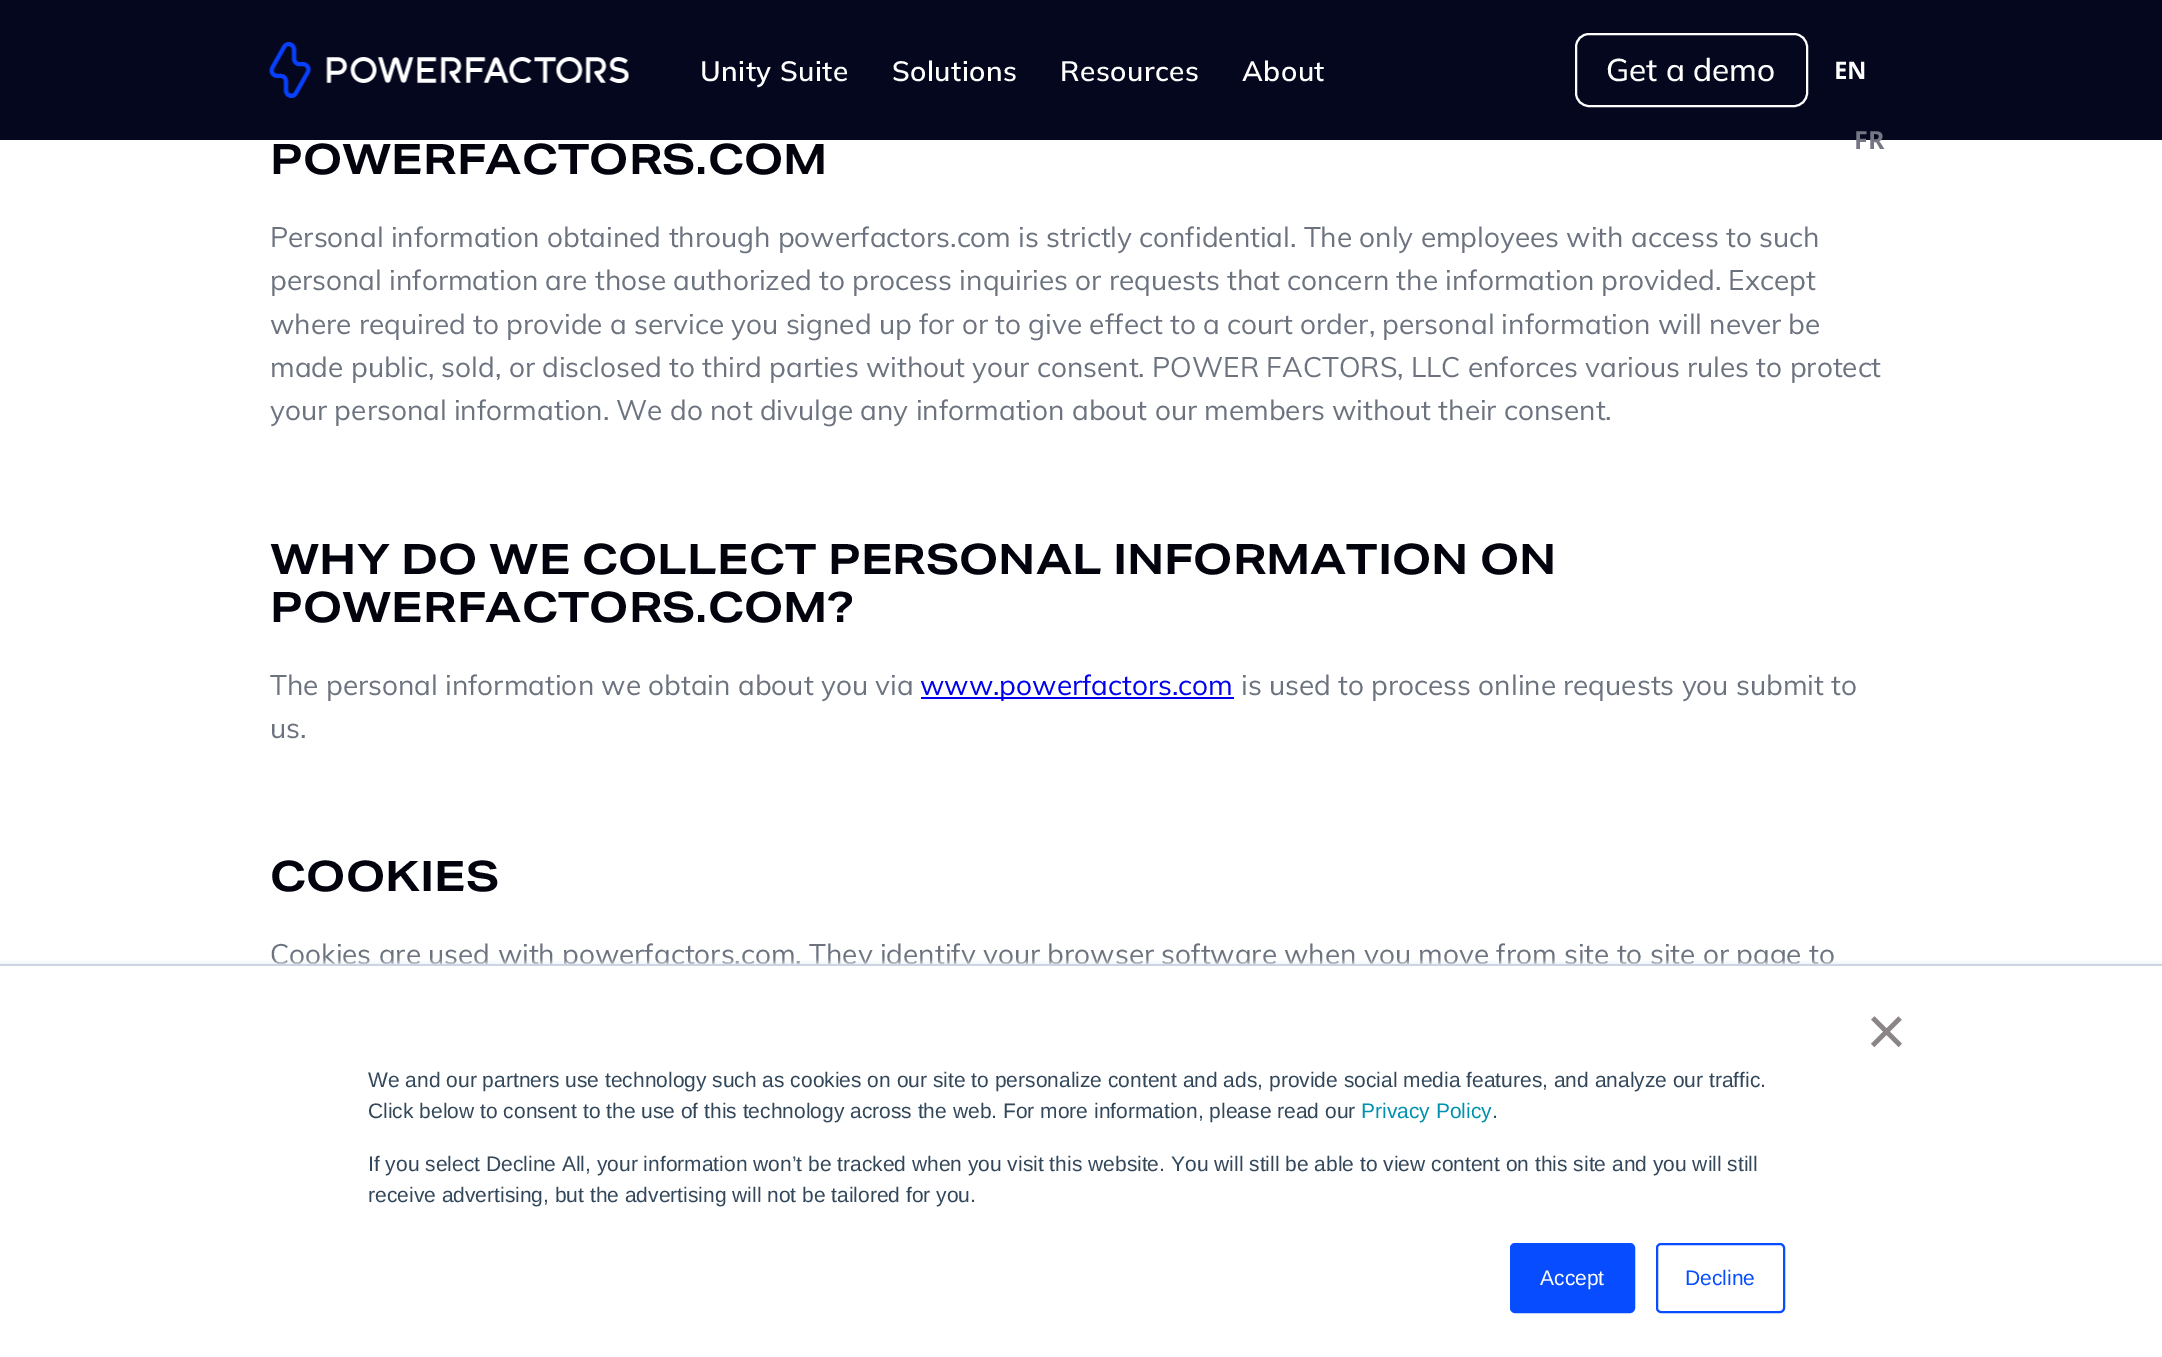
%!PS
<< /PageSize [2162 1357] /PageUsesTransparency true >> setpagedevice
/alpha { dup .setfillconstantalpha .setstrokeconstantalpha } def
/roundrect { 5 dict begin { /r /h /w /y /x } { exch def } forall
  x r add y moveto x w add y 2 copy h add r arct x w add y h add x 1 index r arct
  x y h add x y r arct x y 2 copy exch w add exch r arct closepath end } def
/shadow { 12 dict begin { /a /b /q /h /w /y /x } { exch def } forall gsave /was 0 def
  9 -2 -9 { dup b mul 4 div /e exch def 1 sub .425 mul 2.718 exch exp 1 add a .99 .min exch div /now exch def
    1 1 now sub 1 was sub div sub alpha /was now def
    w h .min e 2 mul add 0 gt { x e sub y e sub w e 2 mul add h e 2 mul add
      q e add b .6 mul add w h .min 2 div e add .min 0 .max roundrect fill } if } for grestore end } def
/picture { 5 dict begin { /h /w /y /x /name } { exch def } forall
  gsave x y translate w h scale
  w h 8 [w 0 0 h 0 0] name (r) file false 3 colorimage grestore end } def
0 .pushpdf14devicefilter
0 1357 translate 1 -1 scale
4 setmiterlimit
1 setgray
0 0 2162 1357 rectfill
0.02 0.027 0.122 setrgbcolor
0 0 2162 140 rectfill
(img1.rgb) 269 42 360 56 picture
/Mulish-SemiBold [28 0 0 -28 0 0] selectfont
1 setgray
700 81 moveto 0.5 0 (Unity Suite) ashow
892 81 moveto 0.5 0 (Solutions) ashow
1060 81 moveto 0.5 0 (Resources) ashow
1242 81 moveto 0.5 0 (About) ashow
2 setlinewidth
1576 34 231 72 13 roundrect stroke
/Mulish-Medium [31.5 0 0 -31.5 0 0] selectfont
1606 81 moveto (Get a demo) show
/NotoSans-Bold [24 0 0 -24 0 0] selectfont
1834 79 moveto (EN) show
/NotoSans-Bold [25 0 0 -25 0 0] selectfont
0.459 0.463 0.514 setrgbcolor
1854 149 moveto (FR) show
/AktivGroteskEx-Bold [42 0 0 -42 0 0] selectfont
0.008 0.012 0.051 setrgbcolor
270 174 moveto (POWERFACTORS.COM) show
/Muli-Regular [28 0 0 -28 0 0] selectfont
0.424 0.451 0.498 setrgbcolor
270 247 moveto (Personal information obtained through powerfactors.com is strictly confidential. The only employees with access to such) show
270 290 moveto (personal information are those authorized to process inquiries or requests that concern the information provided. Except) show
270 334 moveto (where required to provide a service you signed up for or to give effect to a court order, personal information will never be) show
270 377 moveto (made public, sold, or disclosed to third parties without your consent. POWER FACTORS, LLC enforces various rules to protect) show
270 420 moveto (your personal information. We do not divulge any information about our members without their consent.) show
/AktivGroteskEx-Bold [42 0 0 -42 0 0] selectfont
0.008 0.012 0.051 setrgbcolor
270 574 moveto (WHY DO WE COLLECT PERSONAL INFORMATION ON) show
270 622 moveto (POWERFACTORS.COM?) show
/Muli-Regular [28 0 0 -28 0 0] selectfont
0.424 0.451 0.498 setrgbcolor
270 695 moveto (The personal information we obtain about you via) show
0 0 0.933 setrgbcolor
921 697 313 2 rectfill
920 695 moveto (www.powerfactors.com) show
0.424 0.451 0.498 setrgbcolor
1241 695 moveto (is used to process online requests you submit to) show
270 738 moveto (us.) show
/AktivGroteskEx-Bold [42 0 0 -42 0 0] selectfont
0.008 0.012 0.051 setrgbcolor
270 891 moveto (COOKIES) show
/Muli-Regular [28 0 0 -28 0 0] selectfont
0.424 0.451 0.498 setrgbcolor
270 964 moveto (Cookies are used with powerfactors.com. They identify your browser software when you move from site to site or page to) show
0.918 0.941 0.965 setrgbcolor
0 963 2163 393 0 2.5 1 shadow
1 setgray
0 966 2162 391 rectfill
0.796 0.839 0.886 setrgbcolor
0 964 2162 2 rectfill
/LiberationSans-Regular [70 0 0 -70 0 0] selectfont
0.545 0.522 0.537 setrgbcolor
1866 1055 moveto (×) show
/LiberationSans-Regular [21 0 0 -21 0 0] selectfont
0.2 0.278 0.357 setrgbcolor
368 1087 moveto (We and our partners use technology such as cookies on our site to personalize content and ads, provide social media features, and analyze our traffic.) show
368 1118 moveto (Click below to consent to the use of this technology across the web. For more information, please read our) show
0 0.569 0.682 setrgbcolor
1361 1118 moveto (Privacy Policy) show
0.2 0.278 0.357 setrgbcolor
1492 1118 moveto (.) show
368 1171 moveto (If you select Decline All, your information won’t be tracked when you visit this website. You will still be able to view content on this site and you will still) show
368 1202 moveto (receive advertising, but the advertising will not be tailored for you.) show
0.027 0.302 1 setrgbcolor
1511 1244 123 68 4 roundrect gsave fill grestore
stroke
1 setgray
1540 1285 moveto (Accept) show
0.027 0.302 1 setrgbcolor
1657 1244 127 68 4 roundrect stroke
1685 1285 moveto (Decline) show
.poppdf14devicefilter showpage
